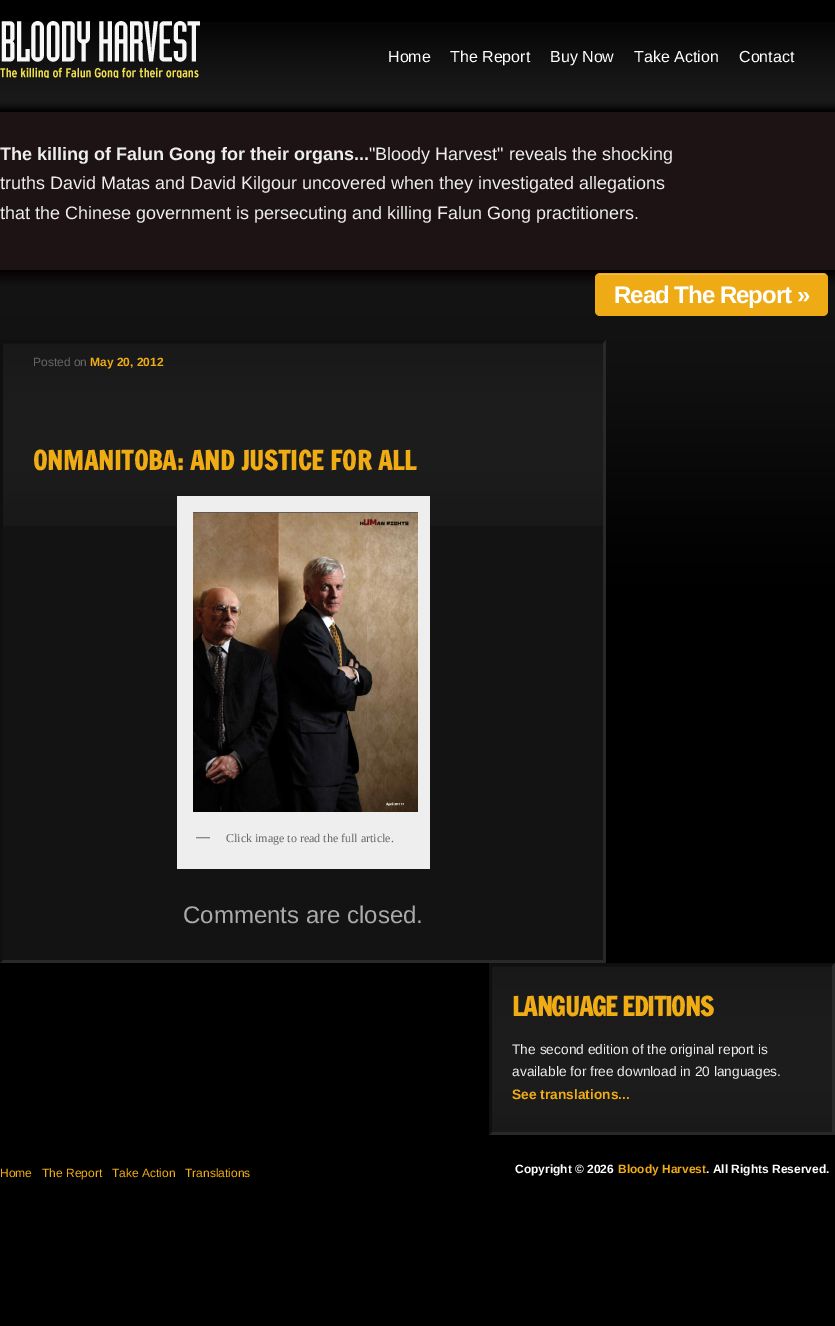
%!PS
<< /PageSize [835 1326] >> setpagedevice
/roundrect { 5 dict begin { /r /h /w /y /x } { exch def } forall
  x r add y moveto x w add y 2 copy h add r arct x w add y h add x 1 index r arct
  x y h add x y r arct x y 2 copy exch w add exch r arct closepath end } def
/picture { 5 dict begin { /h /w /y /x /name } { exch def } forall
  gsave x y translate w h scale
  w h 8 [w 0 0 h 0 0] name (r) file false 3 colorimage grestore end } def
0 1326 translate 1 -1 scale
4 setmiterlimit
0 setgray
0 0 835 1326 rectfill
(img1.rgb) 0 22 835 90 picture
0.114 0.075 0.078 setrgbcolor
0 112 835 158 rectfill
(img2.rgb) 0 270 835 346 picture
(img3.rgb) 0 21 200 57 picture
/LiberationSans-Regular [16 0 0 -16 0 0] selectfont
1 setgray
388 62 moveto (Home) show
450 62 moveto (The Report) show
550 62 moveto (Buy Now) show
634 62 moveto (Take Action) show
739 62 moveto (Contact) show
/LiberationSans-Bold [18 0 0 -18 0 0] selectfont
0.933 setgray
0 160 moveto (The killing of Falun Gong for their organs...) show
/LiberationSans-Regular [18 0 0 -18 0 0] selectfont
369 160 moveto ("Bloody Harvest" reveals the shocking) show
0 189 moveto (truths David Matas and David Kilgour uncovered when they investigated allegations) show
0 219 moveto (that the Chinese government is persecuting and killing Falun Gong practitioners.) show
0.933 0.671 0.082 setrgbcolor
595 273 233 43 5 roundrect fill
0.949 0.753 0.314 setrgbcolor
599 274 226 1 rectfill
/LiberationSans-Bold [24 0 0 -24 0 0] selectfont
1 setgray
614 303 moveto -1 0 (Read The Report ») ashow
0.075 setgray
0 340 606 623 rectfill
(img4.rgb) 3 344 600 182 picture
0.059 setgray
newpath 0 340 moveto 606 340 lineto 603 343 lineto 3 343 lineto closepath fill
0.161 setgray
newpath 606 340 moveto 606 963 lineto 603 960 lineto 603 343 lineto closepath fill
newpath 606 963 moveto 0 963 lineto 3 960 lineto 603 960 lineto closepath fill
0.059 setgray
newpath 0 963 moveto 0 340 lineto 3 343 lineto 3 960 lineto closepath fill
/LiberationSans-Regular [12 0 0 -12 0 0] selectfont
0.4 setgray
33 366 moveto (Posted on) show
/LiberationSans-Bold [12 0 0 -12 0 0] selectfont
0.941 0.675 0.078 setrgbcolor
90 366 moveto (May 20, 2012) show
/FrancoisOne-Bold [26 0 0 -26 0 0] selectfont
33 470 moveto (ONMANITOBA: AND JUSTICE FOR ALL) show
0.933 setgray
177 496 253 373 rectfill
(img5.rgb) 193 512 225 300 picture
/LiberationSerif-Bold [14 0 0 -14 0 0] selectfont
0.4 setgray
196 841 moveto (—) show
/LiberationSerif-Regular [12 0 0 -12 0 0] selectfont
226 842 moveto (Click image to read the full article.) show
/LiberationSans-Regular [24 0 0 -24 0 0] selectfont
0.667 setgray
183 923 moveto (Comments are closed.) show
0.075 setgray
489 963 346 4 rectfill
(img6.rgb) 489 967 346 168 picture
0.059 setgray
newpath 489 963 moveto 835 963 lineto 832 966 lineto 492 966 lineto closepath fill
0.161 setgray
newpath 835 963 moveto 835 1135 lineto 832 1132 lineto 832 966 lineto closepath fill
newpath 835 1135 moveto 489 1135 lineto 492 1132 lineto 832 1132 lineto closepath fill
0.059 setgray
newpath 489 1135 moveto 489 963 lineto 492 966 lineto 492 1132 lineto closepath fill
/FrancoisOne-Bold [26 0 0 -26 0 0] selectfont
0.941 0.675 0.078 setrgbcolor
512 1016 moveto -1 0 (LANGUAGE EDITIONS) ashow
/LiberationSans-Regular [13.75 0 0 -13.75 0 0] selectfont
0.933 setgray
512 1054 moveto (The second edition of the original report is) show
512 1076 moveto (available for free download in 20 languages.) show
/LiberationSans-Bold [13.75 0 0 -13.75 0 0] selectfont
0.941 0.675 0.078 setrgbcolor
512 1099 moveto (See translations...) show
/LiberationSans-Regular [12 0 0 -12 0 0] selectfont
0 1177 moveto (Home) show
42 1177 moveto (The Report) show
112 1177 moveto (Take Action) show
185 1177 moveto (Translations) show
/LiberationSans-Bold [12 0 0 -12 0 0] selectfont
1 setgray
515 1173 moveto (Copyright © 2026) show
0.941 0.675 0.078 setrgbcolor
618 1173 moveto (Bloody Harvest) show
1 setgray
706 1173 moveto (. All Rights Reserved.) show
showpage
